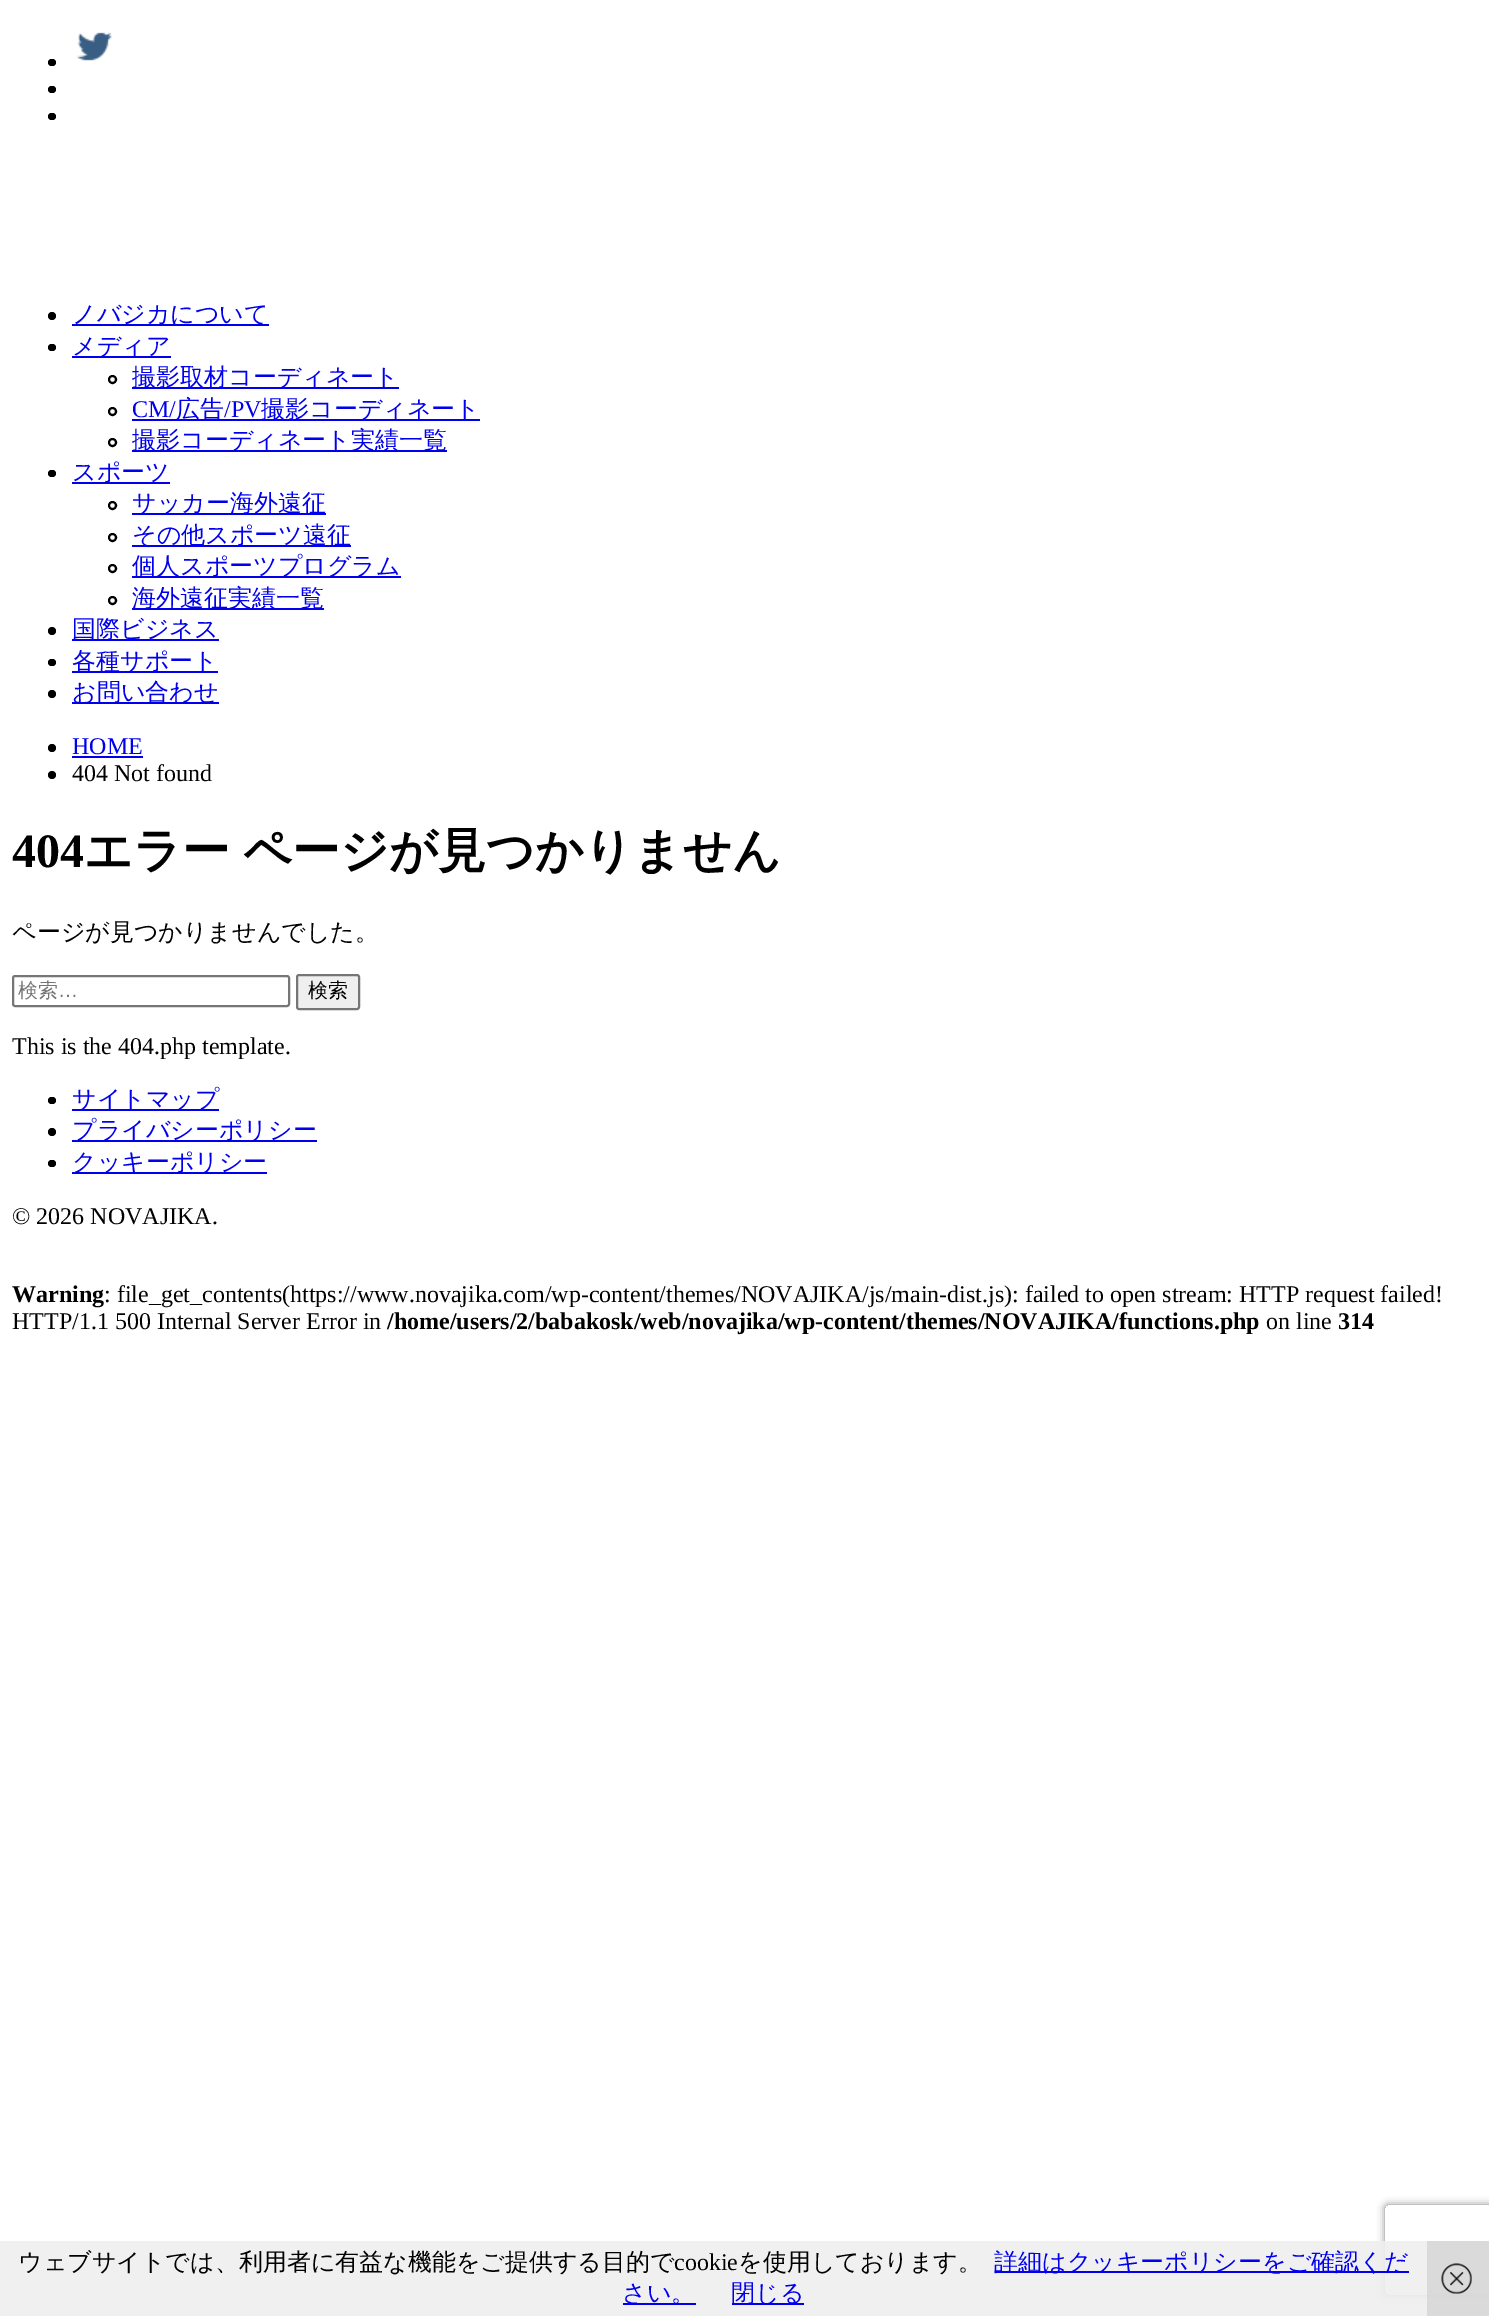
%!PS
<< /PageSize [1489 2316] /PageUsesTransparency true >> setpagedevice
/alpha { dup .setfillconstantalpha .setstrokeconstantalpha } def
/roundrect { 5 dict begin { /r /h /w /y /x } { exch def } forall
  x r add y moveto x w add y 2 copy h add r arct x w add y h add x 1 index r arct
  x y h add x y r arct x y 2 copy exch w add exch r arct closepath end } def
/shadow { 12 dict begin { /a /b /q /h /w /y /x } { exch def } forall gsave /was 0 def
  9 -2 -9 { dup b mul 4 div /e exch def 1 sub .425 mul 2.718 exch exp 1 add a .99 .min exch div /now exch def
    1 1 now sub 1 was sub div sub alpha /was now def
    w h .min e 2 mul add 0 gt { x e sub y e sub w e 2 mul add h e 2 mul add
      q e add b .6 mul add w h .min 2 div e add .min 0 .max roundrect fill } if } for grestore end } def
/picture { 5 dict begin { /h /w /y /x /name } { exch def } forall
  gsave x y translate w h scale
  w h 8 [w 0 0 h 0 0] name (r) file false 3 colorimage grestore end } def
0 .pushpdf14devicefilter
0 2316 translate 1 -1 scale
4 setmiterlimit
1 setgray
0 0 1489 2316 rectfill
(img1.rgb) 76 32 37 29 picture
0 setgray
48 59 8 7 3.5 roundrect fill
48 86 8 7 3.5 roundrect fill
48 113 8 7 3.5 roundrect fill
newpath 52 316 4 0 360 arc closepath fill
0 0 0.933 setrgbcolor
72 324 197 2 rectfill
/WenQuanYiZenHei-Medium [24 0 0 -24 0 0] selectfont
72 322 moveto (ノバジカについて) show
0 setgray
48 344 8 7 3.5 roundrect fill
0 0 0.933 setrgbcolor
72 356 99 2 rectfill
72 354 moveto (メディア) show
0 setgray
2 setlinewidth
newpath 112.5 379.5 3.5 0 360 arc closepath stroke
0 0 0.933 setrgbcolor
132 387 267 2 rectfill
132 385 moveto (撮影取材コーディネート) show
0 setgray
newpath 112.5 411.5 3.5 0 360 arc closepath stroke
/LiberationSerif-Regular [24 0 0 -24 0 0] selectfont
0 0 0.933 setrgbcolor
132 417 moveto (CM/) show
132 419 348 2 rectfill
/WenQuanYiZenHei-Medium [24 0 0 -24 0 0] selectfont
176 417 moveto (広告) show
/LiberationSerif-Regular [24 0 0 -24 0 0] selectfont
224 417 moveto (/PV) show
/WenQuanYiZenHei-Medium [24 0 0 -24 0 0] selectfont
261 417 moveto (撮影コーディネート) show
0 setgray
newpath 112.5 442.5 3.5 0 360 arc closepath stroke
0 0 0.933 setrgbcolor
132 450 315 2 rectfill
132 448 moveto (撮影コーディネート実績一覧) show
0 setgray
48 470 8 7 3.5 roundrect fill
0 0 0.933 setrgbcolor
72 482 98 2 rectfill
72 480 moveto (スポーツ) show
0 setgray
newpath 112.5 505.5 3.5 0 360 arc closepath stroke
0 0 0.933 setrgbcolor
132 513 194 2 rectfill
132 511 moveto (サッカー海外遠征) show
0 setgray
newpath 112.5 537.5 3.5 0 360 arc closepath stroke
0 0 0.933 setrgbcolor
132 545 219 2 rectfill
132 543 moveto (その他スポーツ遠征) show
0 setgray
newpath 112.5 568.5 3.5 0 360 arc closepath stroke
0 0 0.933 setrgbcolor
132 576 269 2 rectfill
132 574 moveto (個人スポーツプログラム) show
0 setgray
newpath 112.5 600.5 3.5 0 360 arc closepath stroke
0 0 0.933 setrgbcolor
132 608 192 2 rectfill
132 606 moveto (海外遠征実績一覧) show
0 setgray
newpath 52 631 4 0 360 arc closepath fill
0 0 0.933 setrgbcolor
72 639 147 2 rectfill
72 637 moveto (国際ビジネス) show
0 setgray
48 659 8 7 3.5 roundrect fill
0 0 0.933 setrgbcolor
72 671 146 2 rectfill
72 669 moveto (各種サポート) show
0 setgray
newpath 52 694 4 0 360 arc closepath fill
0 0 0.933 setrgbcolor
72 702 147 2 rectfill
72 700 moveto (お問い合わせ) show
0 setgray
newpath 52 748 4 0 360 arc closepath fill
/LiberationSerif-Regular [24 0 0 -24 0 0] selectfont
0 0 0.933 setrgbcolor
72 754 moveto (HOME) show
72 756 71 2 rectfill
0 setgray
newpath 52 775 4 0 360 arc closepath fill
72 781 moveto (404 Not found) show
/LiberationSerif-Bold [48 0 0 -48 0 0] selectfont
12 867 moveto (404) show
/WenQuanYiZenHei-Bold [48 0 0 -48 0 0] selectfont
84 867 moveto -2 0 32 (エラー ページが見つかりません) widthshow
/WenQuanYiZenHei-Medium [24 0 0 -24 0 0] selectfont
12 940 moveto (ページが見つかりませんでした。) show
0.463 setgray
13 976 276 30 2 roundrect stroke
/WenQuanYiZenHei-Medium [20 0 0 -20 0 0] selectfont
0.459 setgray
18 997 moveto (検索) show
/LiberationSans-Regular [20 0 0 -20 0 0] selectfont
58 997 moveto (…) show
0.937 setgray
297 975 62 34 2 roundrect gsave fill grestore
0.463 setgray
stroke
/WenQuanYiZenHei-Medium [20 0 0 -20 0 0] selectfont
0 setgray
308 997 moveto (検索) show
/LiberationSerif-Regular [24 0 0 -24 0 0] selectfont
12 1054 moveto (This is the 404.php template.) show
48 1097 8 7 3.5 roundrect fill
0 0 0.933 setrgbcolor
72 1109 147 2 rectfill
/WenQuanYiZenHei-Medium [24 0 0 -24 0 0] selectfont
72 1107 moveto (サイトマップ) show
0 setgray
newpath 52 1132 4 0 360 arc closepath fill
0 0 0.933 setrgbcolor
72 1140 245 2 rectfill
72 1138 moveto (プライバシーポリシー) show
0 setgray
48 1160 8 7 3.5 roundrect fill
0 0 0.933 setrgbcolor
72 1172 195 2 rectfill
72 1170 moveto (クッキーポリシー) show
/LiberationSerif-Regular [24 0 0 -24 0 0] selectfont
0 setgray
12 1224 moveto (© 2026 NOVAJIKA.) show
/LiberationSerif-Bold [24 0 0 -24 0 0] selectfont
12 1302 moveto (Warning) show
/LiberationSerif-Regular [24 0 0 -24 0 0] selectfont
104 1302 moveto (: file_get_contents\(https://www.novajika.com/wp-content/themes/NOVAJIKA/js/main-dist.js\): failed to open stream: HTTP request failed!) show
12 1329 moveto (HTTP/1.1 500 Internal Server Error in) show
/LiberationSerif-Bold [24 0 0 -24 0 0] selectfont
387 1329 moveto (/home/users/2/babakosk/web/novajika/wp-content/themes/NOVAJIKA/functions.php) show
/LiberationSerif-Regular [24 0 0 -24 0 0] selectfont
1266 1329 moveto (on line) show
/LiberationSerif-Bold [24 0 0 -24 0 0] selectfont
1338 1329 moveto (314) show
gsave
newpath 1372 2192 moveto 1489 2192 lineto 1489 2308 lineto 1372 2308 lineto closepath 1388 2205 moveto 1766 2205 lineto 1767.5 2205 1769 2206.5 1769 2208 curveto 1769 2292 lineto 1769 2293.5 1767.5 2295 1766 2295 curveto 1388 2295 lineto 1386.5 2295 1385 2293.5 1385 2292 curveto 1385 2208 lineto 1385 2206.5 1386.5 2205 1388 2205 curveto closepath eoclip newpath
0.502 setgray
1385 2205 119 90 3 4 1 shadow
grestore
0.9 alpha
0.933 setgray
0 2241 1489 75 rectfill
/WenQuanYiZenHei-Medium [24 0 0 -24 0 0] selectfont
1 alpha
0 setgray
18 2270 moveto (ウェブサイトでは、利用者に有益な機能をご提供する目的で) show
/LiberationSerif-Regular [24 0 0 -24 0 0] selectfont
674 2270 moveto (cookie) show
/WenQuanYiZenHei-Medium [24 0 0 -24 0 0] selectfont
738 2270 moveto (を使用しております。) show
0 0 0.933 setrgbcolor
995 2271 414 2 rectfill
994 2270 moveto (詳細はクッキーポリシーをご確認くだ) show
623 2303 73 2 rectfill
622 2301 moveto (さい。) show
732 2303 72 2 rectfill
731 2301 moveto (閉じる) show
0.6 alpha
0.8 setgray
1427 2241 62 75 rectfill
1 alpha
(img2.rgb) 1441 2263 31 31 picture
.poppdf14devicefilter showpage
